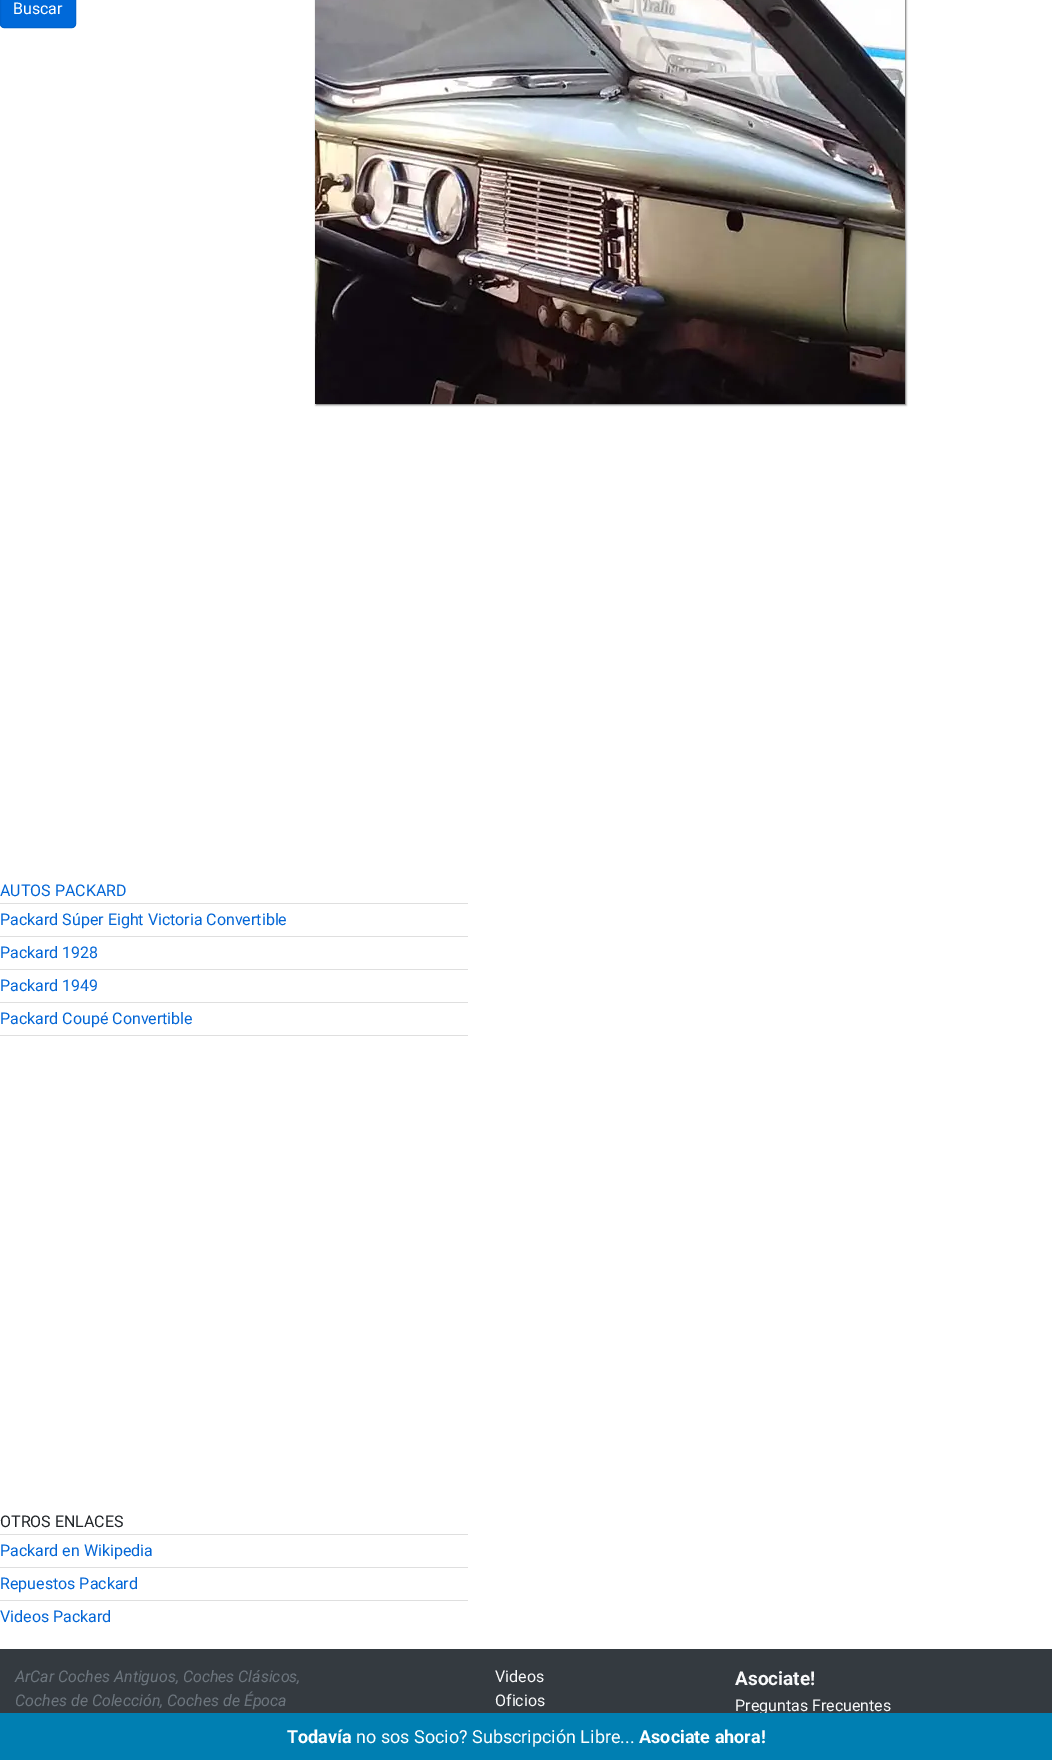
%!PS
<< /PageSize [1052 1760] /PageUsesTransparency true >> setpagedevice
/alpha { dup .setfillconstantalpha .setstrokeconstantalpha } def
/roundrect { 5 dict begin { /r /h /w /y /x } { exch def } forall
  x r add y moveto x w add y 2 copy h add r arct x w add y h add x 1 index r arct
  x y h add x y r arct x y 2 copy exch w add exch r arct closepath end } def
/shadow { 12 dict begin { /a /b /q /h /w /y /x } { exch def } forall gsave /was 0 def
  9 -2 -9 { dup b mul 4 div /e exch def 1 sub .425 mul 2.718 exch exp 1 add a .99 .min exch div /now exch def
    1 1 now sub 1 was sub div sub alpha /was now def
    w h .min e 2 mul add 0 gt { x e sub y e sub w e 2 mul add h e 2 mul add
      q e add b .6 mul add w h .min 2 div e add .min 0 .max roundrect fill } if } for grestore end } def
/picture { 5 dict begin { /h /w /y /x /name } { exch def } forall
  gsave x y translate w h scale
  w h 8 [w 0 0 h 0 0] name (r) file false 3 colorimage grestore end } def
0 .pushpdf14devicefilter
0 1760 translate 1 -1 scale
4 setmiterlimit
1 setgray
0 0 1052 1760 rectfill
0 0.412 0.851 setrgbcolor
0.5 -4.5 75 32 3.5 roundrect gsave fill grestore
0 0.384 0.8 setrgbcolor
stroke
/Roboto-Regular [16 0 0 -16 0 0] selectfont
1 setgray
13 14 moveto (Buscar) show
0.4 setgray
316 -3 590 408 0 1 1 shadow
(img1.rgb) 315 0 590 404 picture
0.012 0.4 0.839 setrgbcolor
0 896 moveto (AUTOS PACKARD) show
0.875 setgray
0 903 468 1 rectfill
0.012 0.4 0.839 setrgbcolor
0 925 moveto (Packard Súper Eight Victoria Convertible) show
0.875 setgray
0 936 468 1 rectfill
0.012 0.4 0.839 setrgbcolor
0 958 moveto (Packard 1928) show
0.875 setgray
0 969 468 1 rectfill
0.012 0.4 0.839 setrgbcolor
0 991 moveto (Packard 1949) show
0.875 setgray
0 1002 468 1 rectfill
0 1035 468 1 rectfill
0.012 0.4 0.839 setrgbcolor
0 1024 moveto (Packard Coupé Convertible) show
0.129 0.145 0.161 setrgbcolor
0 1527 moveto (OTROS ENLACES) show
0.875 setgray
0 1534 468 1 rectfill
0.012 0.4 0.839 setrgbcolor
0 1556 moveto (Packard en Wikipedia) show
0.875 setgray
0 1567 468 1 rectfill
0.012 0.4 0.839 setrgbcolor
0 1589 moveto (Repuestos Packard) show
0.875 setgray
0 1600 468 1 rectfill
0.012 0.4 0.839 setrgbcolor
0 1622 moveto (Videos Packard) show
0.204 0.227 0.251 setrgbcolor
0 1649 1052 64 rectfill
/Roboto-Italic [16 0 0 -16 0 0] selectfont
0.424 0.459 0.49 setrgbcolor
15 1682 moveto (ArCar Coches Antiguos, Coches Clásicos,) show
15 1706 moveto (Coches de Colección, Coches de Época) show
/Roboto-Regular [16 0 0 -16 0 0] selectfont
0.973 0.976 0.98 setrgbcolor
495 1682 moveto (Videos) show
495 1706 moveto (Oficios) show
/Roboto-Bold [19 0 0 -19 0 0] selectfont
735 1685 moveto (Asociate!) show
/Roboto-Regular [16 0 0 -16 0 0] selectfont
735 1711 moveto (Preguntas Frecuentes) show
0 0.498 0.698 setrgbcolor
0 1713 1052 47 rectfill
/Roboto-Bold [18 0 0 -18 0 0] selectfont
1 setgray
287 1743 moveto (Todavía) show
/Roboto-Regular [18 0 0 -18 0 0] selectfont
356 1743 moveto (no sos Socio? Subscripción Libre...) show
/Roboto-Bold [18 0 0 -18 0 0] selectfont
639 1743 moveto (Asociate ahora!) show
.poppdf14devicefilter showpage
